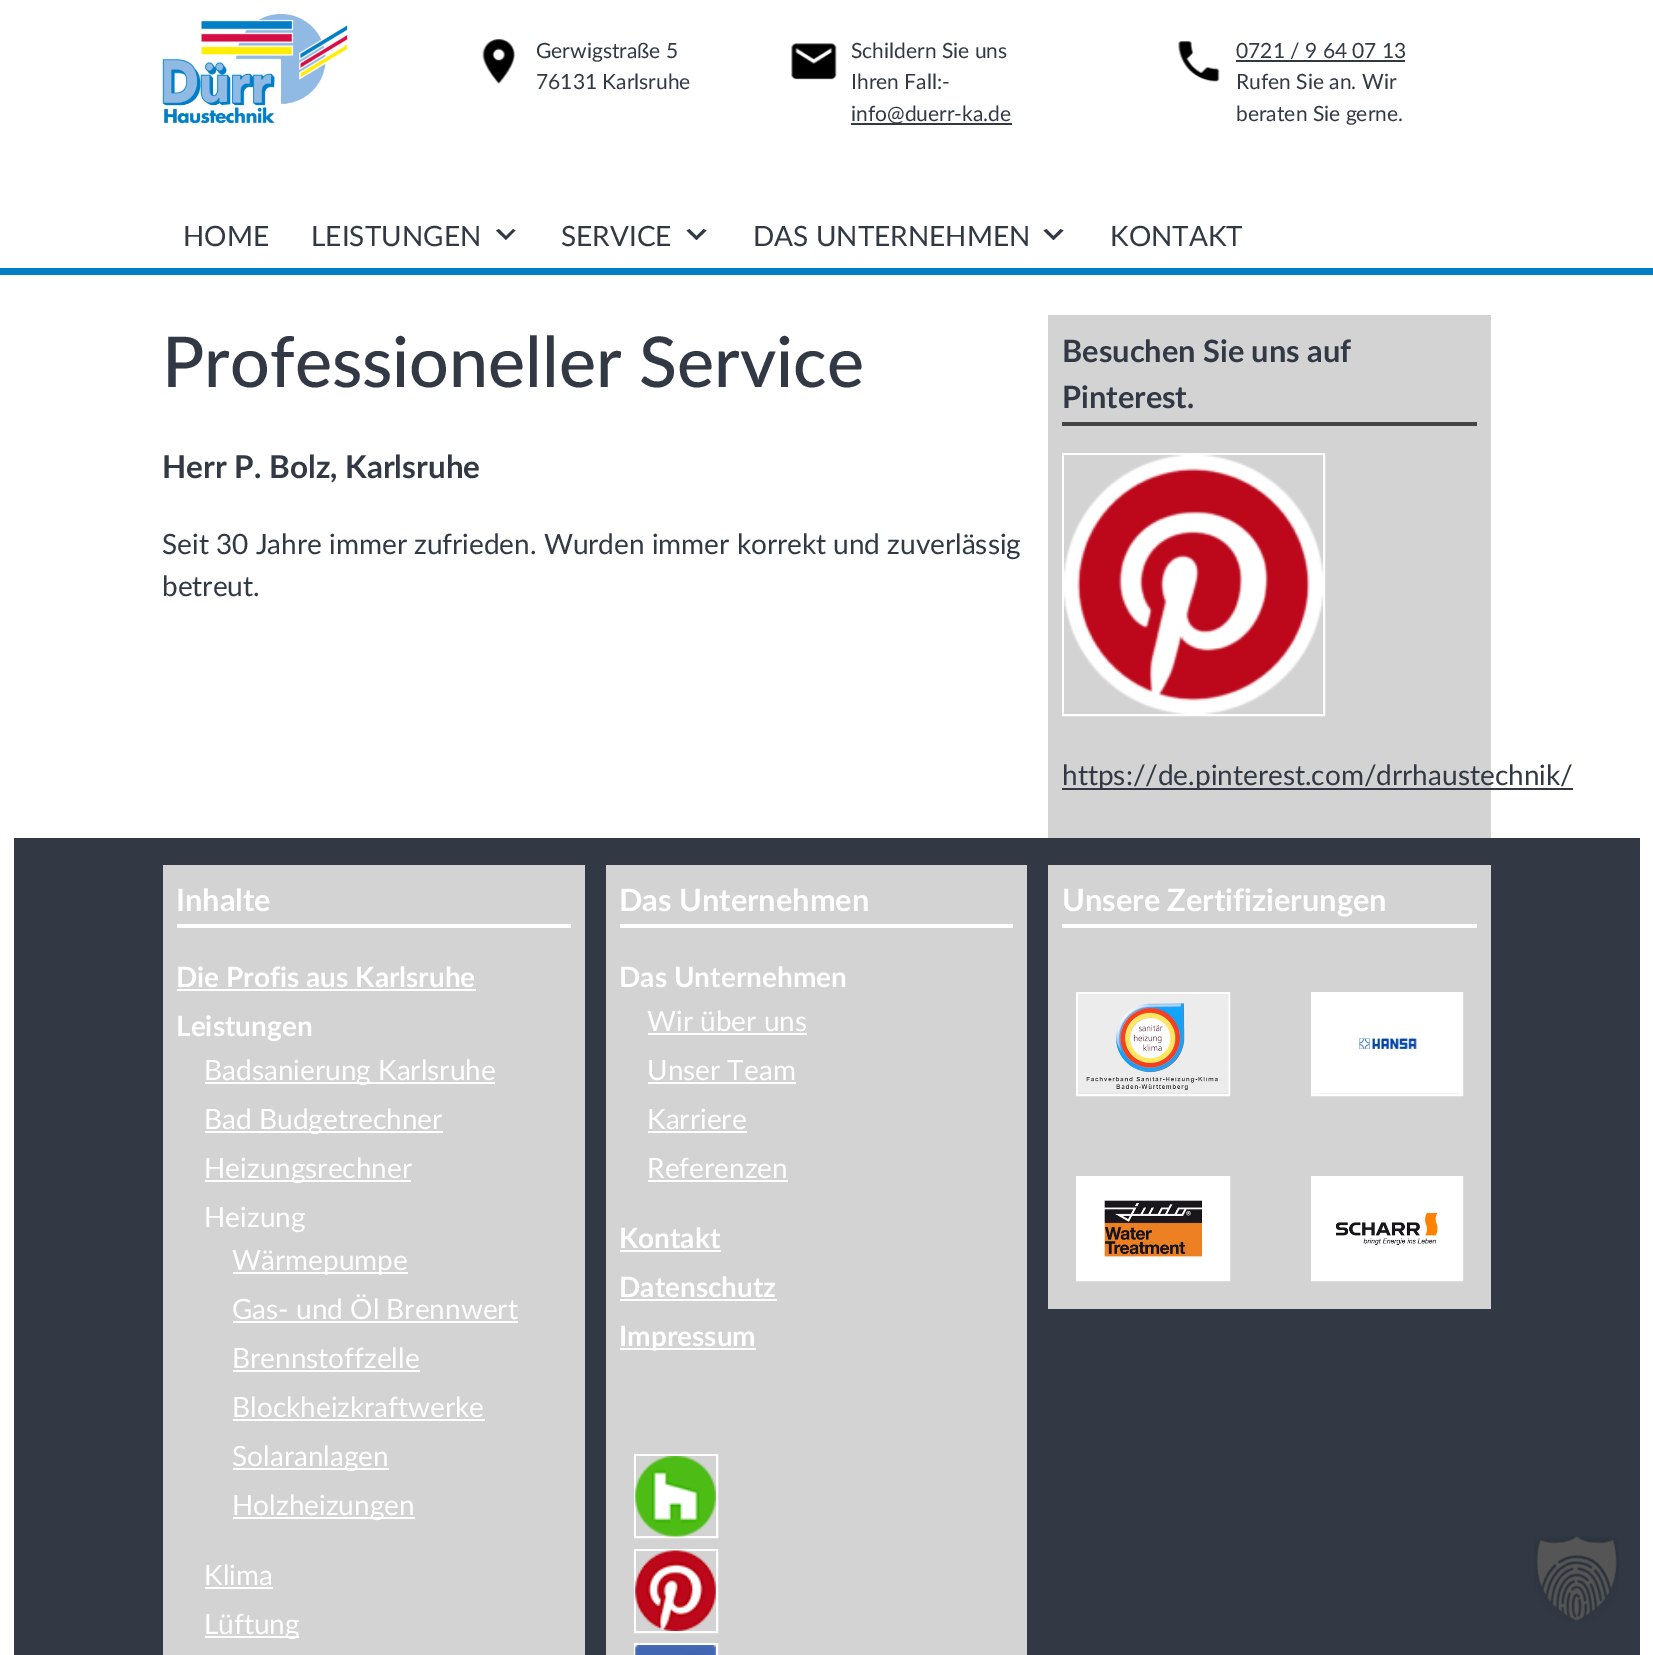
%!PS
<< /PageSize [1653 1655] >> setpagedevice
/picture { 5 dict begin { /h /w /y /x /name } { exch def } forall
  gsave x y translate w h scale
  w h 8 [w 0 0 h 0 0] name (r) file false 3 colorimage grestore end } def
0 1655 translate 1 -1 scale
4 setmiterlimit
1 setgray
0 0 1653 1655 rectfill
0 0.494 0.776 setrgbcolor
0 268 1653 7 rectfill
(img1.rgb) 162 14 186 110 picture
(img2.rgb) 482 39 33 45 picture
/Lato-Regular [21 0 0 -21 0 0] selectfont
0.196 0.224 0.267 setrgbcolor
536 58 moveto (Gerwigstraße 5) show
536 89 moveto (76131 Karlsruhe) show
(img3.rgb) 791 43 46 37 picture
851 58 moveto (Schildern Sie uns) show
851 89 moveto (Ihren Fall:-) show
851 123 161 2 rectfill
851 121 moveto (info@duerr-ka.de) show
(img4.rgb) 1178 41 42 41 picture
1236 58 moveto (0721 / 9 64 07 13) show
1236 60 169 2 rectfill
1236 89 moveto (Rufen Sie an. Wir) show
1236 121 moveto (beraten Sie gerne.) show
/Lato-Regular [28 0 0 -28 0 0] selectfont
183 246 moveto (HOME) show
311 246 moveto (LEISTUNGEN) show
newpath 499 229 moveto 506 236 lineto 513 229 lineto 515.5 230.5 lineto 506 240 lineto 496 230.5 lineto closepath fill
561 246 moveto (SERVICE) show
newpath 689.5 229 moveto 696.5 236 lineto 703.5 229 lineto 706.5 230.5 lineto 696.5 240 lineto 686.5 230.5 lineto closepath fill
753 246 moveto (DAS UNTERNEHMEN) show
newpath 1046.5 229 moveto 1053.5 236 lineto 1060.5 229 lineto 1063.5 230.5 lineto 1053.5 240 lineto 1043.5 230.5 lineto closepath fill
1110 246 moveto (KONTAKT) show
/Lato-Medium [70 0 0 -70 0 0] selectfont
162 387 moveto (Professioneller Service) show
/Lato-Bold [31.5 0 0 -31.5 0 0] selectfont
162 478 moveto (Herr P. Bolz, Karlsruhe) show
/Lato-Regular [28 0 0 -28 0 0] selectfont
162 554 moveto (Seit 30 Jahre immer zufrieden. Wurden immer korrekt und zuverlässig) show
162 596 moveto (betreut.) show
0.827 setgray
1048 315 443 523 rectfill
0.267 setgray
1062 422 415 4 rectfill
/Lato-Bold [30.75 0 0 -30.75 0 0] selectfont
0.196 0.224 0.267 setrgbcolor
1062 362 moveto (Besuchen Sie uns auf) show
1062 408 moveto (Pinterest.) show
1 setgray
2 setlinewidth
1063 454 261 261 rectstroke
(img5.rgb) 1064 455 259 259 picture
0.196 0.224 0.267 setrgbcolor
1062 788 511 2 rectfill
/Lato-Regular [28 0 0 -28 0 0] selectfont
1062 785 moveto (https://de.pinterest.com/drrhaustechnik/) show
14 838 1626 817 rectfill
0.827 setgray
163 865 422 790 rectfill
1 setgray
177 924 394 4 rectfill
/Lato-Bold [30.75 0 0 -30.75 0 0] selectfont
176 911 moveto (Inhalte) show
/Lato-Bold [28 0 0 -28 0 0] selectfont
176 987 moveto (Die Profis aus Karlsruhe) show
177 989 299 2 rectfill
176 1036 moveto (Leistungen) show
205 1082 290 2 rectfill
/Lato-Regular [28 0 0 -28 0 0] selectfont
204 1080 moveto (Badsanierung Karlsruhe) show
205 1131 238 2 rectfill
204 1129 moveto (Bad Budgetrechner) show
205 1180 206 2 rectfill
204 1178 moveto (Heizungsrechner) show
204 1227 moveto (Heizung) show
233 1272 175 2 rectfill
232 1270 moveto (Wärmepumpe) show
232 1319 moveto (Gas- und Öl Brennwert) show
233 1321 285 2 rectfill
232 1368 moveto (Brennstoffzelle) show
233 1370 187 2 rectfill
232 1417 moveto (Blockheizkraftwerke) show
233 1419 252 2 rectfill
233 1468 156 2 rectfill
232 1466 moveto (Solaranlagen) show
233 1517 182 2 rectfill
232 1515 moveto (Holzheizungen) show
204 1585 moveto (Klima) show
205 1587 68 2 rectfill
205 1636 94 2 rectfill
204 1634 moveto (Lüftung) show
0.827 setgray
606 865 421 790 rectfill
1 setgray
620 924 393 4 rectfill
/Lato-Bold [30.75 0 0 -30.75 0 0] selectfont
619 911 moveto (Das Unternehmen) show
/Lato-Bold [28 0 0 -28 0 0] selectfont
619 987 moveto (Das Unternehmen) show
/Lato-Regular [28 0 0 -28 0 0] selectfont
647 1031 moveto (Wir über uns) show
648 1033 159 2 rectfill
647 1080 moveto (Unser Team) show
648 1082 148 2 rectfill
647 1129 moveto (Karriere) show
648 1131 99 2 rectfill
647 1178 moveto (Referenzen) show
648 1180 140 2 rectfill
/Lato-Bold [28 0 0 -28 0 0] selectfont
619 1248 moveto (Kontakt) show
620 1250 101 2 rectfill
619 1297 moveto (Datenschutz) show
620 1299 157 2 rectfill
620 1348 136 2 rectfill
619 1346 moveto (Impressum) show
635 1455 82 82 rectstroke
(img6.rgb) 635 1456 81 81 picture
635 1550 82 82 rectstroke
(img7.rgb) 635 1550 81 81 picture
635 1644 82 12 rectstroke
(img8.rgb) 635 1645 81 10 picture
0.827 setgray
1048 865 443 444 rectfill
1 setgray
1062 924 415 4 rectfill
/Lato-Bold [30.75 0 0 -30.75 0 0] selectfont
1062 911 moveto (Unsere Zertifizierungen) show
1077 993 152 102 rectstroke
(img9.rgb) 1078 994 151 100 picture
1312 993 150 102 rectstroke
(img10.rgb) 1313 994 148 100 picture
1077 1177 152 103 rectstroke
(img11.rgb) 1078 1178 150 101 picture
1312 1177 150 103 rectstroke
(img12.rgb) 1313 1178 148 101 picture
(img13.rgb) 1534 1536 85 85 picture
showpage
